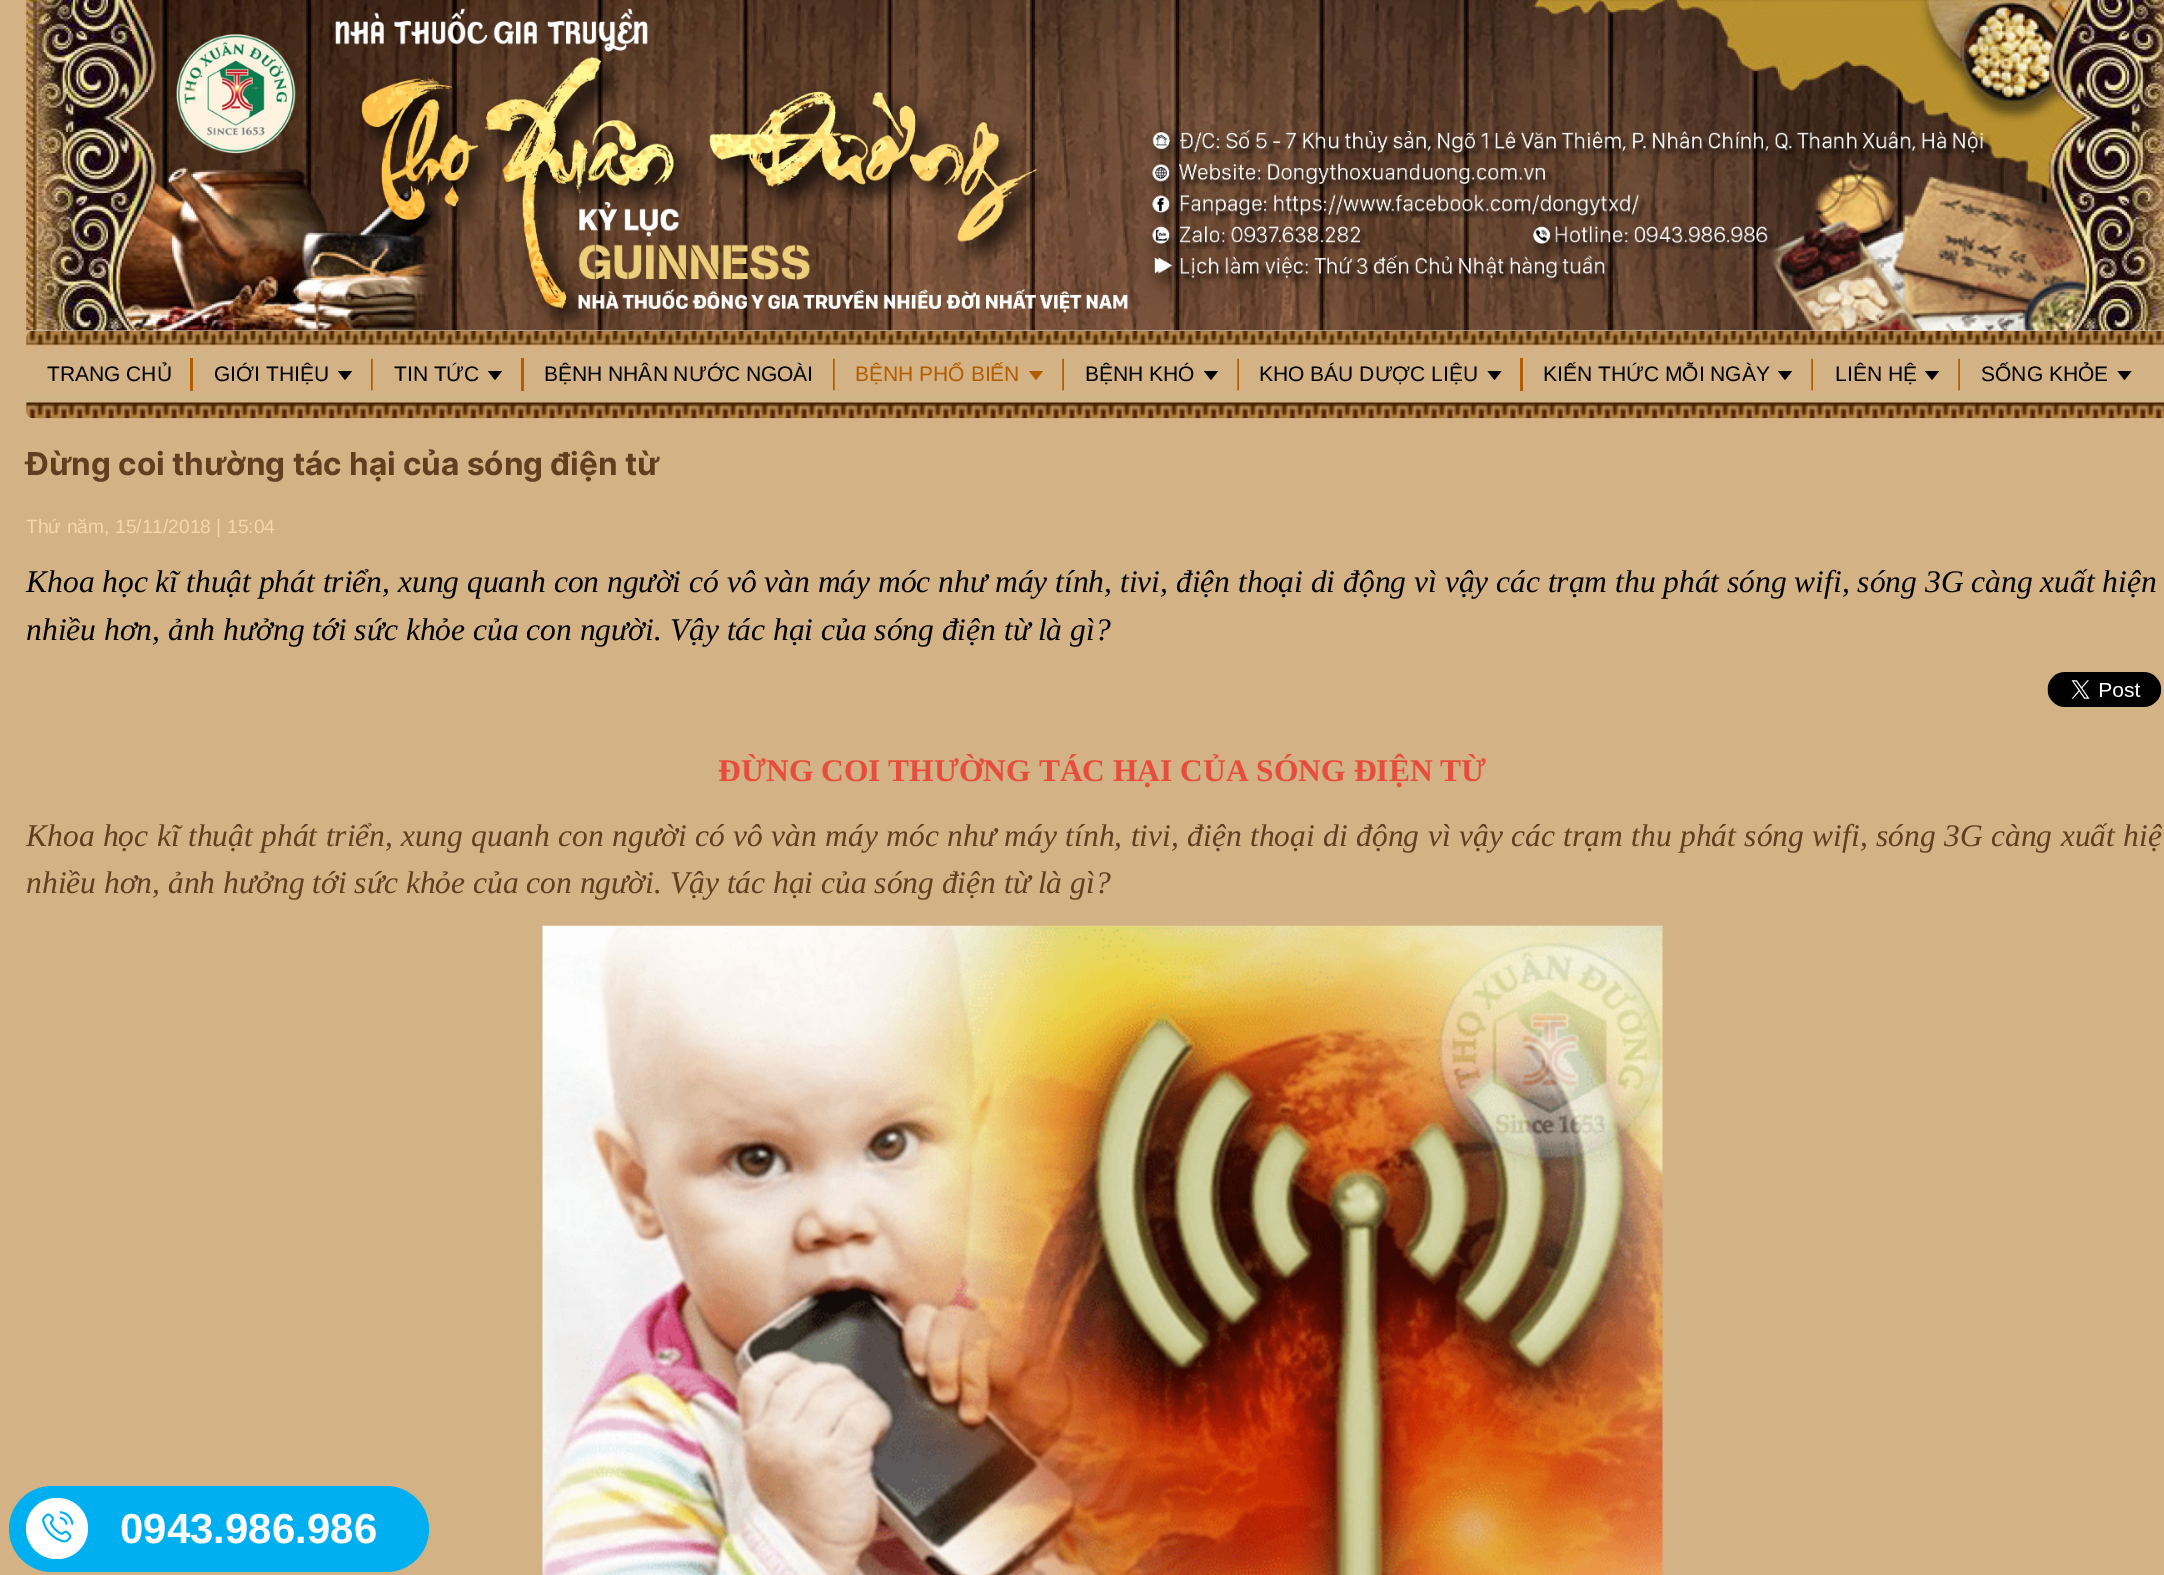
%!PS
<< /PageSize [2164 1575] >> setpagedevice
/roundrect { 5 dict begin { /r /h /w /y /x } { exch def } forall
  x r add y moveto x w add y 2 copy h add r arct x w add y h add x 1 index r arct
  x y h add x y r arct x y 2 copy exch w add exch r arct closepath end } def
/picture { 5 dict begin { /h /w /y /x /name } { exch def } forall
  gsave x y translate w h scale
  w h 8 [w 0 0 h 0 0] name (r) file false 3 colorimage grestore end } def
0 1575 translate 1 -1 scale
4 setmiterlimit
0.827 0.698 0.525 setrgbcolor
0 0 2164 1575 rectfill
(img1.rgb) 26 0 2138 331 picture
(img2.rgb) 26 330 2138 89 picture
0.706 0.365 0 setrgbcolor
190 358 3 33 rectfill
/LiberationSans-Regular [21 0 0 -21 0 0] selectfont
0 setgray
47 381 moveto (TRANG CHỦ) show
(img3.rgb) 371 358 2 33 picture
214 381 moveto (GIỚI THIỆU) show
newpath 338 371 moveto 352 371 lineto 345 380 lineto closepath fill
0.706 0.365 0 setrgbcolor
521 358 3 33 rectfill
0 setgray
394 381 moveto (TIN TỨC) show
newpath 488 371 moveto 502 371 lineto 495 380 lineto closepath fill
(img4.rgb) 833 358 2 33 picture
544 381 moveto (BỆNH NHÂN NƯỚC NGOÀI) show
(img5.rgb) 1062 358 2 33 picture
0.702 0.365 0 setrgbcolor
855 381 moveto (BỆNH PHỔ BIẾN) show
newpath 1029 371 moveto 1043 371 lineto 1036 380 lineto closepath fill
(img5.rgb) 1237 358 2 33 picture
0 setgray
1085 381 moveto (BỆNH KHÓ) show
newpath 1204 371 moveto 1218 371 lineto 1211 380 lineto closepath fill
0.706 0.365 0 setrgbcolor
1520 358 3 33 rectfill
0 setgray
1259 381 moveto (KHO BÁU DƯỢC LIỆU) show
newpath 1487.5 371 moveto 1501.5 371 lineto 1494.5 380 lineto closepath fill
(img6.rgb) 1811 358 2 33 picture
1543 381 moveto (KIẾN THỨC MỖI NGÀY) show
newpath 1778 371 moveto 1792 371 lineto 1785 380 lineto closepath fill
(img5.rgb) 1958 358 2 33 picture
1835 381 moveto (LIÊN HỆ) show
newpath 1925 371 moveto 1939 371 lineto 1932 380 lineto closepath fill
1981 381 moveto (SỐNG KHỎE) show
newpath 2117.5 371 moveto 2131.5 371 lineto 2124.5 380 lineto closepath fill
/Inter-Bold [31.5 0 0 -31.5 0 0] selectfont
0.384 0.239 0.125 setrgbcolor
26 475 moveto (Đừng coi thường tác hại của sóng điện từ) show
/LiberationSans-Regular [19.25 0 0 -19.25 0 0] selectfont
0.965 0.839 0.675 setrgbcolor
26 533 moveto (Thứ năm, 15/11/2018 | 15:04) show
/LiberationSerif-Italic [31.5 0 0 -31.5 0 0] selectfont
0 setgray
26 592 moveto (Khoa học kĩ thuật phát triển, xung quanh con người có vô vàn máy móc như máy tính, tivi, điện thoại di động vì vậy các trạm thu phát sóng wifi, sóng 3G càng xuất hiện) show
26 640 moveto (nhiều hơn, ảnh hưởng tới sức khỏe của con người. Vậy tác hại của sóng điện từ là gì?) show
(img7.rgb) 2047 672 115 35 picture
/LiberationSerif-Bold [31.5 0 0 -31.5 0 0] selectfont
0.906 0.298 0.235 setrgbcolor
718 781 moveto (ĐỪNG COI THƯỜNG TÁC HẠI CỦA SÓNG ĐIỆN TỪ) show
/LiberationSerif-Italic [31.5 0 0 -31.5 0 0] selectfont
0.384 0.239 0.125 setrgbcolor
26 846 moveto 0.6 0 32 (Khoa học kĩ thuật phát triển, xung quanh con người có vô vàn máy móc như máy tính, tivi, điện thoại di động vì vậy các trạm thu phát sóng wifi, sóng 3G càng xuất hiệ) widthshow
26 893 moveto (nhiều hơn, ảnh hưởng tới sức khỏe của con người. Vậy tác hại của sóng điện từ là gì?) show
(img8.rgb) 542 925 1121 650 picture
0 0.686 0.937 setrgbcolor
9 1486 420 86 43 roundrect fill
1 setgray
26 1498 62 61 30.5 roundrect fill
(img9.rgb) 42 1511 32 32 picture
/LiberationSans-Bold [42 0 0 -42 0 0] selectfont
120 1543 moveto (0943.986.986) show
showpage
